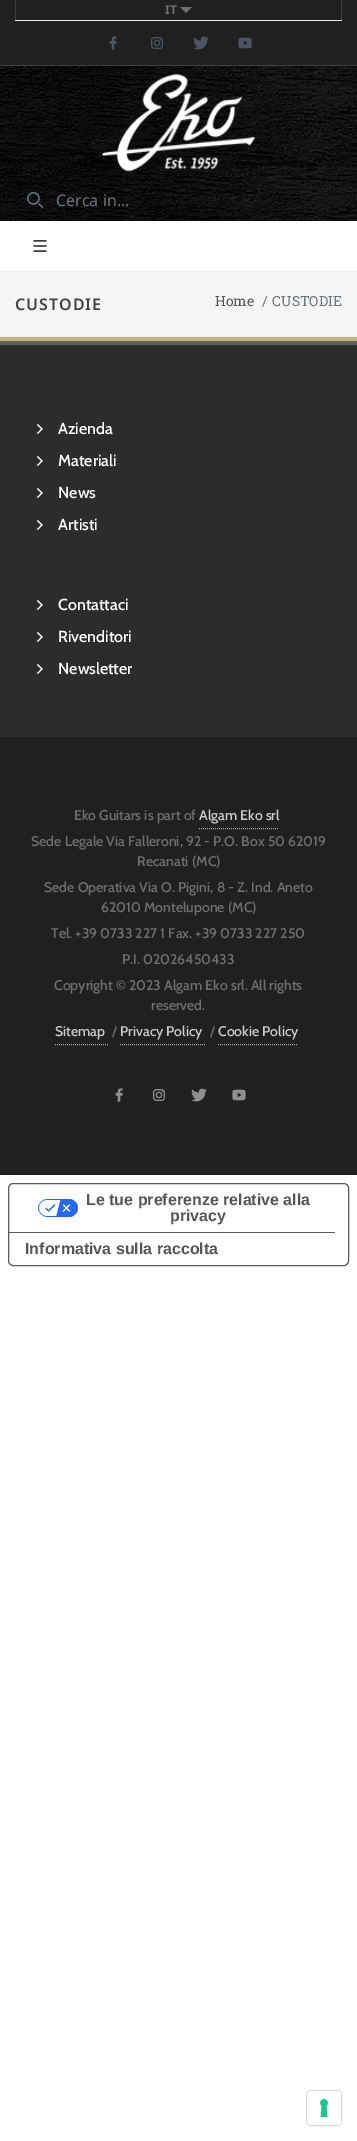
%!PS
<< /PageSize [357 2141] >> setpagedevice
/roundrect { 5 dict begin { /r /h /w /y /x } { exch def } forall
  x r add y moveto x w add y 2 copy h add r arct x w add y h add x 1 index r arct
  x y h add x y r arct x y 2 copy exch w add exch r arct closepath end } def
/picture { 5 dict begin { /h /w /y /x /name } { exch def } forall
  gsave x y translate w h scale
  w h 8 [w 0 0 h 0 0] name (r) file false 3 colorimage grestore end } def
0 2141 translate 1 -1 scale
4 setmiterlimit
1 setgray
0 0 357 2141 rectfill
0.125 setgray
0 0 357 65 rectfill
0.251 setgray
0 65 357 1 rectfill
0.933 setgray
15 20 327 1 rectfill
0.251 setgray
15 0 1 20 rectfill
/NotoSans-Bold [12 0 0 -12 0 0] selectfont
0.439 setgray
165 14 moveto (IT) show
newpath 180 7 moveto 186 13 lineto 192 7 lineto closepath fill
0.251 setgray
341 0 1 20 rectfill
(img1.rgb) 109 36 8 14 picture
(img2.rgb) 151 37 12 12 picture
(img3.rgb) 193 36 16 14 picture
(img4.rgb) 238 37 14 12 picture
(img5.rgb) 0 66 357 155 picture
(img6.rgb) 102 73 153 99 picture
(img7.rgb) 27 192 16 16 picture
/NotoSans-Regular [16 0 0 -16 0 0] selectfont
0.424 0.459 0.49 setrgbcolor
56 206 moveto (Cerca in...) show
0.933 setgray
0 271 357 1 rectfill
(img8.rgb) 33 240 14 12 picture
0.961 setgray
0 272 357 64 rectfill
0.933 setgray
0 336 357 1 rectfill
/NotoSans-SemiBold [16 0 0 -16 0 0] selectfont
0.267 setgray
15 310 moveto 1 0 (CUSTODIE) ashow
/Suwannaphum-Regular [14 0 0 -14 0 0] selectfont
0.333 setgray
215 306 moveto (Home) show
0.424 0.459 0.49 setrgbcolor
262 306 moveto (/ CUSTODIE) show
0.773 0.702 0.498 setrgbcolor
0 337 357 4 rectfill
0.369 setgray
0 341 357 4 rectfill
0.173 setgray
0 345 357 392 rectfill
(img9.rgb) 36 423 7 11 picture
/Cabin-Medium [16 0 0 -16 0 0] selectfont
1 setgray
58 434 moveto (Azienda) show
(img9.rgb) 36 455 7 11 picture
58 466 moveto (Materiali) show
(img9.rgb) 36 487 7 11 picture
58 498 moveto (News) show
(img9.rgb) 36 519 7 11 picture
58 530 moveto (Artisti) show
(img9.rgb) 36 599 7 11 picture
58 610 moveto (Contattaci) show
(img9.rgb) 36 631 7 11 picture
58 642 moveto (Rivenditori) show
(img9.rgb) 36 663 7 11 picture
58 674 moveto (Newsletter) show
0.125 setgray
0 737 357 438 rectfill
/Cabin-Medium [14 0 0 -14 0 0] selectfont
0.439 setgray
74 820 moveto (Eko Guitars is part of) show
0.8 setgray
199 820 moveto (Algam Eko srl) show
0.651 setgray
[1 1] 0 setdash
newpath 199 828.5 moveto 279 828.5 lineto stroke
0.439 setgray
31 846 moveto (Sede Legale Via Falleroni, 92 - P.O. Box 50 62019) show
137 866 moveto (Recanati \(MC\)) show
44 892 moveto (Sede Operativa Via O. Pigini, 8 - Z. Ind. Aneto) show
101 912 moveto (62010 Montelupone \(MC\)) show
51 938 moveto (Tel. +39 0733 227 1 Fax. +39 0733 227 250) show
122 964 moveto (P.I. 02026450433) show
54 990 moveto (Copyright © 2023 Algam Eko srl. All rights) show
151 1010 moveto (reserved.) show
0.8 setgray
55 1036 moveto (Sitemap) show
0.651 setgray
newpath 55 1044.5 moveto 108 1044.5 lineto stroke
0.439 setgray
112 1036 moveto (/) show
0.8 setgray
120 1036 moveto (Privacy Policy) show
0.651 setgray
newpath 120 1044.5 moveto 206 1044.5 lineto stroke
0.439 setgray
210 1036 moveto (/) show
0.8 setgray
218 1036 moveto (Cookie Policy) show
0.651 setgray
newpath 218 1044.5 moveto 298 1044.5 lineto stroke
(img10.rgb) 115 1088 8 14 picture
(img11.rgb) 153 1089 12 12 picture
(img12.rgb) 191 1088 16 14 picture
(img13.rgb) 232 1089 14 12 picture
0.349 setgray
[] 0 setdash
8.5 1183.5 340 82 4.5 roundrect stroke
9 1232 326 1 rectfill
(img14.rgb) 38 1199 40 18 picture
/LiberationSans-Bold [16 0 0 -16 0 0] selectfont
0.333 setgray
86 1205 moveto (Le tue preferenze relative alla) show
170 1221 moveto (privacy) show
25 1254 moveto (Informativa sulla raccolta) show
0.851 setgray
306.5 2090.5 35 35 4.5 roundrect stroke
1 setgray
307 2091 34 34 4 roundrect fill
(img15.rgb) 320 2099 8 18 picture
showpage
